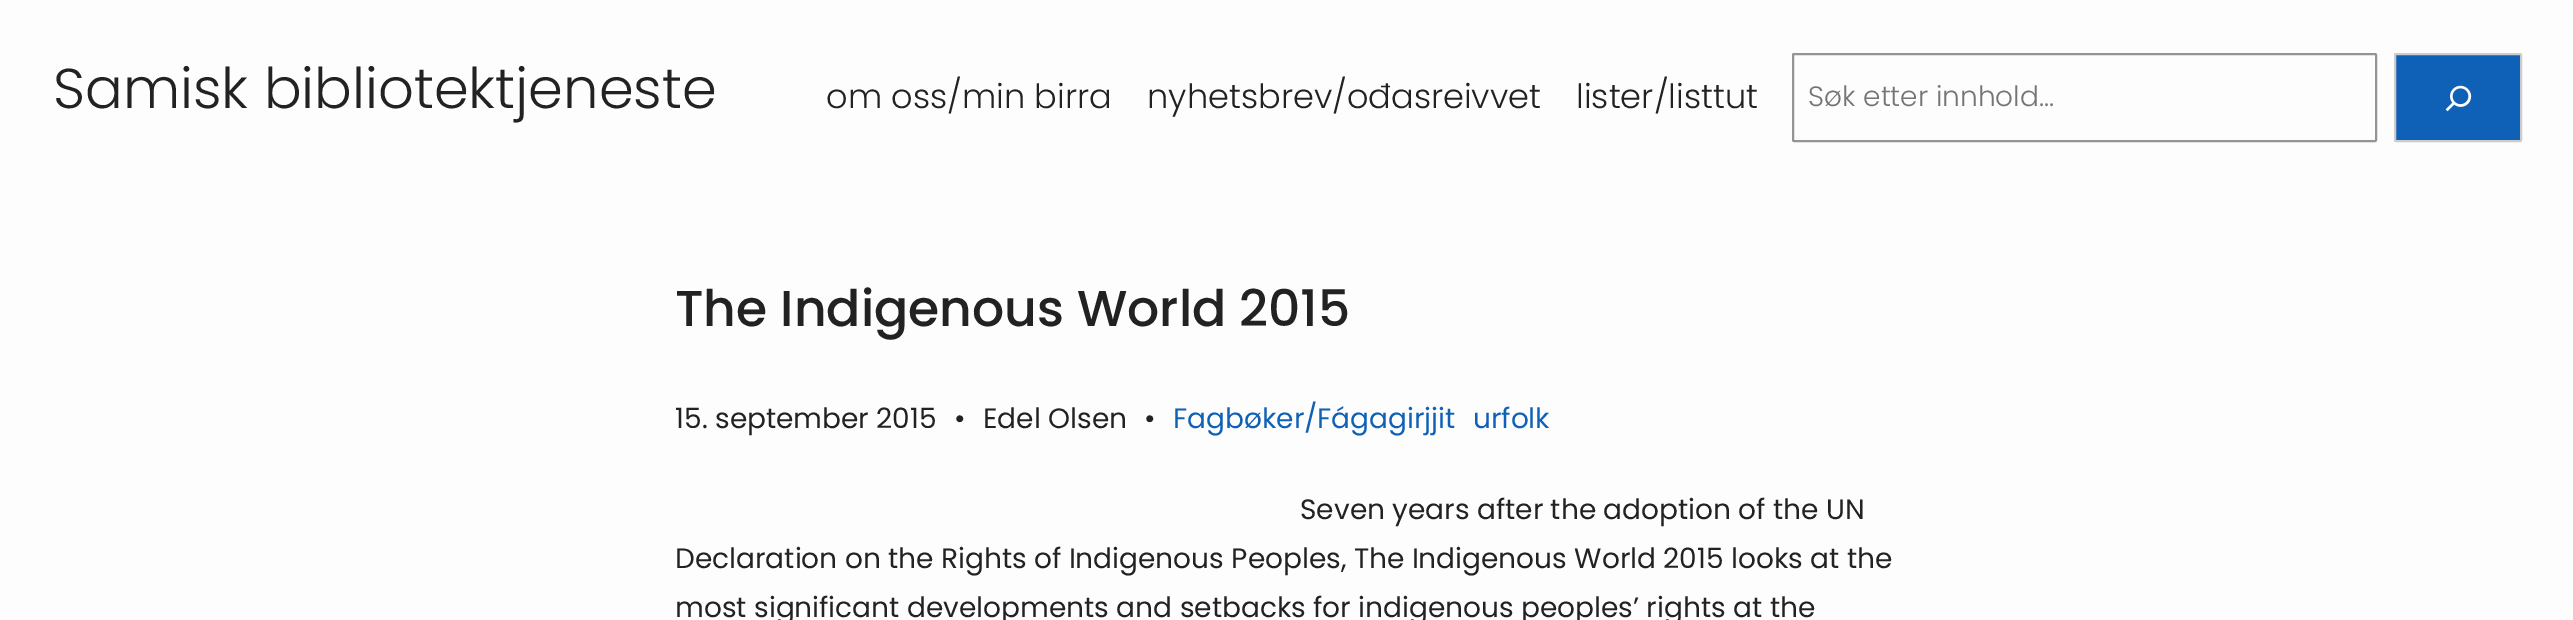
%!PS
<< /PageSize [2573 620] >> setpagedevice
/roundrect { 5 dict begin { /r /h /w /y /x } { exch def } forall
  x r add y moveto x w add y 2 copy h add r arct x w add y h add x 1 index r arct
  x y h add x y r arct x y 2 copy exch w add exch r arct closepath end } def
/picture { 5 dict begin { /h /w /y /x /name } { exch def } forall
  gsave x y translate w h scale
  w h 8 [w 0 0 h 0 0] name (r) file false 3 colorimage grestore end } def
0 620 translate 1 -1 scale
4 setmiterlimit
0.992 setgray
0 0 2573 620 rectfill
/Poppins-Light [56 0 0 -56 0 0] selectfont
0.133 setgray
53 108 moveto (Samisk bibliotektjeneste) show
/Poppins-Light [33.6 0 0 -33.6 0 0] selectfont
826 108 moveto (om oss/min birra) show
1147 108 moveto (nyhetsbrev/ođasreivvet) show
1576 108 moveto (lister/listtut) show
0.58 setgray
2 setlinewidth
1793 54 583 87 1 roundrect stroke
/Poppins-Light [28 0 0 -28 0 0] selectfont
0.459 setgray
1808 106 moveto (Søk etter innhold...) show
0.059 0.376 0.718 setrgbcolor
2395 54 126 87 1 roundrect gsave fill grestore
0.8 setgray
stroke
(img1.rgb) 2445 85 27 27 picture
/Poppins-Medium [50.4 0 0 -50.4 0 0] selectfont
0.133 setgray
675 326 moveto (The Indigenous World 2015) show
/Poppins-Regular [28 0 0 -28 0 0] selectfont
675 428 moveto (15. september 2015) show
954 428 moveto (•) show
983 428 moveto (Edel Olsen) show
1144 428 moveto (•) show
0.059 0.376 0.718 setrgbcolor
1173 428 moveto (Fagbøker/Fágagirjjit) show
1473 428 moveto (urfolk) show
0.133 setgray
1300 519 moveto (Seven years after the adoption of the UN) show
675 568 moveto (Declaration on the Rights of Indigenous Peoples, The Indigenous World 2015 looks at the) show
675 617 moveto (most significant developments and setbacks for indigenous peoples’ rights at the) show
showpage
